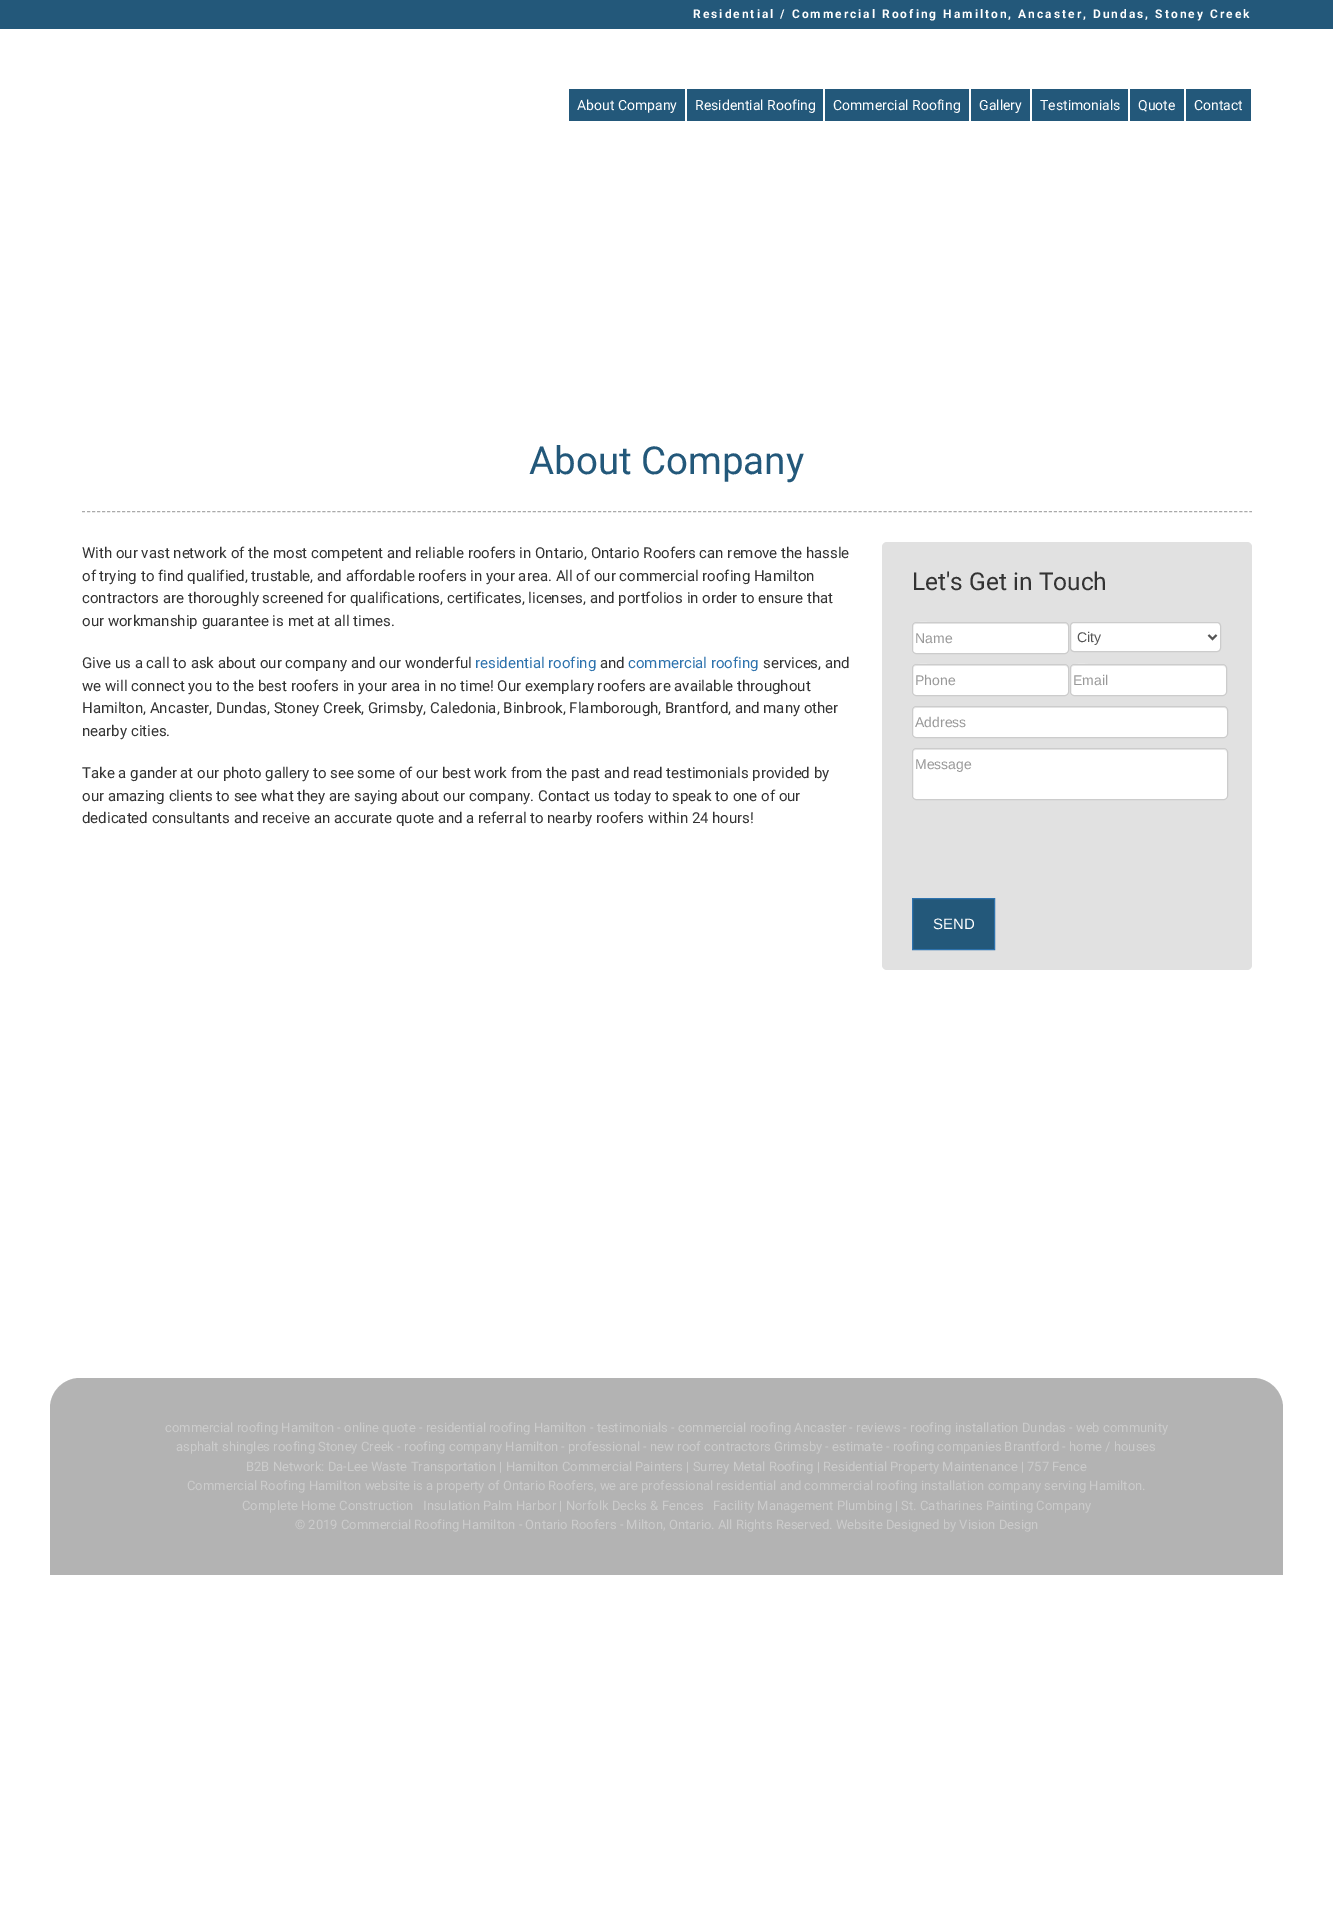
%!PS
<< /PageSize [1333 1911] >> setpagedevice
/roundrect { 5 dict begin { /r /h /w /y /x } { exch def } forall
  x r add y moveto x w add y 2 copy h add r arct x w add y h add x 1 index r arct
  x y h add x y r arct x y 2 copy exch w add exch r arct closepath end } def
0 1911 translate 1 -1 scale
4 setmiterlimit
1 setgray
0 0 1333 1911 rectfill
0.137 0.345 0.478 setrgbcolor
0 0 1333 29 rectfill
/Roboto-Bold [12 0 0 -12 0 0] selectfont
1 setgray
693 18 moveto 2 0 (Residential / Commercial Roofing Hamilton, Ancaster, Dundas, Stoney Creek) ashow
0.137 0.345 0.478 setrgbcolor
569 89 116 32 rectfill
/Roboto-Regular [14 0 0 -14 0 0] selectfont
1 setgray
577 110 moveto (About Company) show
0.137 0.345 0.478 setrgbcolor
687 89 136 32 rectfill
1 setgray
695 110 moveto (Residential Roofing) show
0.137 0.345 0.478 setrgbcolor
825 89 144 32 rectfill
1 setgray
833 110 moveto (Commercial Roofing) show
0.137 0.345 0.478 setrgbcolor
971 89 59 32 rectfill
1 setgray
979 110 moveto (Gallery) show
0.137 0.345 0.478 setrgbcolor
1032 89 96 32 rectfill
1 setgray
1040 110 moveto (Testimonials) show
0.137 0.345 0.478 setrgbcolor
1130 89 54 32 rectfill
1 setgray
1138 110 moveto (Quote) show
0.137 0.345 0.478 setrgbcolor
1186 89 65 32 rectfill
1 setgray
1194 110 moveto (Contact) show
0.667 setgray
[3 2.01] 0 setdash
newpath 82 511.5 moveto 1252 511.5 lineto stroke
/Roboto-Regular [38.5 0 0 -38.5 0 0] selectfont
0.137 0.345 0.478 setrgbcolor
529 474 moveto (About Company) show
/Roboto-Regular [15 0 0 -15 0 0] selectfont
0.2 setgray
82 558 moveto (With our vast network of the most competent and reliable roofers in Ontario, Ontario Roofers can remove the hassle) show
82 581 moveto (of trying to find qualified, trustable, and affordable roofers in your area. All of our commercial roofing Hamilton) show
82 603 moveto (contractors are thoroughly screened for qualifications, certificates, licenses, and portfolios in order to ensure that) show
82 626 moveto (our workmanship guarantee is met at all times.) show
82 668 moveto (Give us a call to ask about our company and our wonderful) show
0.176 0.447 0.678 setrgbcolor
475 668 moveto (residential roofing) show
0.2 setgray
600 668 moveto (and) show
0.176 0.447 0.678 setrgbcolor
628 668 moveto (commercial roofing) show
0.2 setgray
763 668 moveto (services, and) show
82 691 moveto (we will connect you to the best roofers in your area in no time! Our exemplary roofers are available throughout) show
82 713 moveto (Hamilton, Ancaster, Dundas, Stoney Creek, Grimsby, Caledonia, Binbrook, Flamborough, Brantford, and many other) show
82 736 moveto (nearby cities.) show
82 778 moveto (Take a gander at our photo gallery to see some of our best work from the past and read testimonials provided by) show
82 801 moveto (our amazing clients to see what they are saying about our company. Contact us today to speak to one of our) show
82 823 moveto (dedicated consultants and receive an accurate quote and a referral to nearby roofers within 24 hours!) show
0.882 setgray
882 542 370 428 5 roundrect fill
/Roboto-Regular [24.5 0 0 -24.5 0 0] selectfont
0.2 setgray
912 590 moveto (Let's Get in Touch) show
1 setgray
912 622 157 32 4 roundrect fill
0.925 setgray
newpath 916 624 moveto 1065 624 lineto 1067 624 1068 625 1068 627 curveto 1068 625 1068 624 1066 623 curveto 941 623 lineto 933 623 913 618 913 627 curveto 913 625 914 624 916 624 curveto closepath fill
0.8 setgray
[] 0 setdash
912.5 622.5 156 31 3.5 roundrect stroke
/LiberationSans-Regular [14 0 0 -14 0 0] selectfont
0.6 setgray
915 643 moveto (Name) show
1 setgray
1070.5 622.5 150 29 3.5 roundrect gsave fill grestore
0.8 setgray
stroke
0.333 setgray
2 setlinewidth
newpath 1208.5 635 moveto 1212.5 639 lineto 1216.5 635 lineto stroke
1077 642 moveto (City) show
1 setgray
912 664 157 32 4 roundrect fill
0.925 setgray
newpath 916 666 moveto 1065 666 lineto 1067 666 1068 667 1068 669 curveto 1068 667 1068 666 1066 665 curveto 941 665 lineto 933 665 913 660 913 669 curveto 913 667 914 666 916 666 curveto closepath fill
0.8 setgray
1 setlinewidth
912.5 664.5 156 31 3.5 roundrect stroke
0.6 setgray
915 685 moveto (Phone) show
1 setgray
1070 664 157 32 4 roundrect fill
0.925 setgray
newpath 1074 666 moveto 1223 666 lineto 1225 666 1226 667 1226 669 curveto 1226 667 1226 666 1224 665 curveto 1099 665 lineto 1091 665 1071 660 1071 669 curveto 1071 667 1072 666 1074 666 curveto closepath fill
0.8 setgray
1070.5 664.5 156 31 3.5 roundrect stroke
0.6 setgray
1073 685 moveto (Email) show
1 setgray
912 706 316 32 4 roundrect fill
0.925 setgray
newpath 916 708 moveto 1224 708 lineto 1226 708 1227 709 1227 711 curveto 1226 708 lineto 1225 707 lineto 916 707 lineto 914 707 913 709 913 711 curveto 913 709 914 708 916 708 curveto closepath fill
0.8 setgray
912.5 706.5 315 31 3.5 roundrect stroke
0.6 setgray
915 727 moveto (Address) show
1 setgray
912 748 316 52 4 roundrect fill
0.925 setgray
newpath 916 750 moveto 1224 750 lineto 1226 750 1227 751 1227 753 curveto 1226 750 lineto 1225 749 lineto 916 749 lineto 914 749 913 751 913 753 curveto 913 751 914 750 916 750 curveto closepath fill
0.8 setgray
912.5 748.5 315 51 3.5 roundrect stroke
0.6 setgray
915 769 moveto (Message) show
0.137 0.345 0.478 setrgbcolor
newpath 912.5 898.5 moveto 994.5 898.5 lineto 994.5 949.5 lineto 912.5 949.5 lineto closepath gsave fill grestore
0.176 0.447 0.678 setrgbcolor
stroke
/LiberationSans-Regular [15 0 0 -15 0 0] selectfont
1 setgray
933 929 moveto (SEND) show
0.702 setgray
newpath 80 1378 moveto 1253 1378 lineto 1269.5 1378 1283 1391.5 1283 1408 curveto 1283 1575 lineto 50 1575 lineto 50 1408 lineto 50 1391.5 63.5 1378 80 1378 curveto closepath fill
/Roboto-Regular [13 0 0 -13 0 0] selectfont
0.8 setgray
165 1432 moveto (commercial roofing Hamilton - online quote - residential roofing Hamilton - testimonials - commercial roofing Ancaster - reviews - roofing installation Dundas - web community) show
176 1451 moveto (asphalt shingles roofing Stoney Creek - roofing company Hamilton - professional - new roof contractors Grimsby - estimate - roofing companies Brantford - home / houses) show
246 1471 moveto (B2B Network: Da-Lee Waste Transportation | Hamilton Commercial Painters | Surrey Metal Roofing | Residential Property Maintenance | 757 Fence) show
187 1490 moveto (Commercial Roofing Hamilton website is a property of Ontario Roofers, we are professional residential and commercial roofing installation company serving Hamilton.) show
242 1510 moveto (Complete Home Construction) show
423 1510 moveto (Insulation Palm Harbor | Norfolk Decks & Fences) show
713 1510 moveto (Facility Management Plumbing | St. Catharines Painting Company) show
295 1529 moveto (© 2019 Commercial Roofing Hamilton - Ontario Roofers - Milton, Ontario. All Rights Reserved. Website Designed by Vision Design) show
showpage
